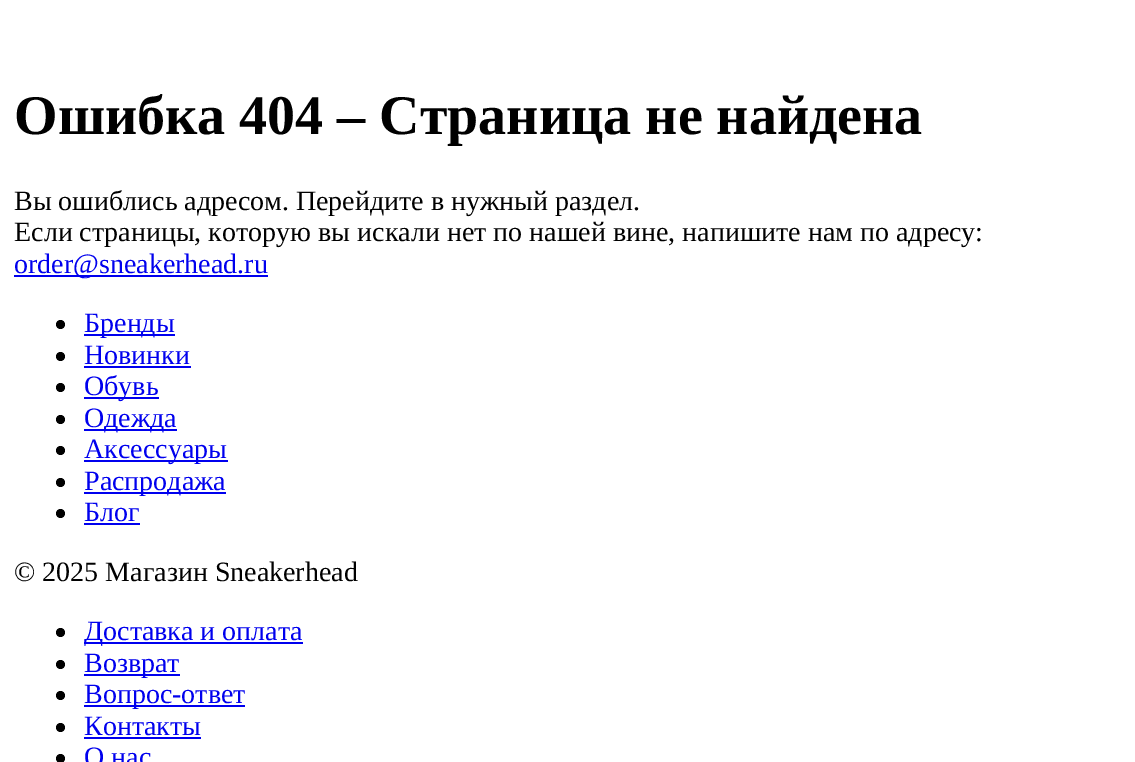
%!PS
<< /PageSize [1135 762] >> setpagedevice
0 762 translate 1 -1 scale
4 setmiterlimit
1 setgray
0 0 1135 762 rectfill
/LiberationSerif-Bold [56 0 0 -56 0 0] selectfont
0 setgray
14 134 moveto (Ошибка 404 – Страница не найдена) show
/LiberationSerif-Regular [28 0 0 -28 0 0] selectfont
14 210 moveto (Вы ошиблись адресом. Перейдите в нужный раздел.) show
14 241 moveto (Если страницы, которую вы искали нет по нашей вине, напишите нам по адресу:) show
0 0 0.933 setrgbcolor
14 275 254 2 rectfill
14 273 moveto (order@sneakerhead.ru) show
0 setgray
newpath 60.5 324.5 4.5 0 360 arc closepath fill
0 0 0.933 setrgbcolor
84 334 91 2 rectfill
84 332 moveto (Бренды) show
0 setgray
newpath 60.5 356.5 4.5 0 360 arc closepath fill
0 0 0.933 setrgbcolor
84 364 moveto (Новинки) show
84 366 107 2 rectfill
0 setgray
newpath 60.5 387.5 4.5 0 360 arc closepath fill
0 0 0.933 setrgbcolor
84 397 75 2 rectfill
84 395 moveto (Обувь) show
0 setgray
newpath 60.5 419.5 4.5 0 360 arc closepath fill
0 0 0.933 setrgbcolor
84 429 93 2 rectfill
84 427 moveto (Одежда) show
0 setgray
newpath 60.5 450.5 4.5 0 360 arc closepath fill
0 0 0.933 setrgbcolor
84 460 144 2 rectfill
84 458 moveto (Аксессуары) show
0 setgray
newpath 60.5 482.5 4.5 0 360 arc closepath fill
0 0 0.933 setrgbcolor
84 492 142 2 rectfill
84 490 moveto (Распродажа) show
0 setgray
newpath 60.5 513.5 4.5 0 360 arc closepath fill
0 0 0.933 setrgbcolor
84 521 moveto (Блог) show
84 523 56 2 rectfill
0 setgray
14 581 moveto (© 2025 Магазин Sneakerhead) show
newpath 60.5 632.5 4.5 0 360 arc closepath fill
0 0 0.933 setrgbcolor
84 642 219 2 rectfill
84 640 moveto (Доставка и оплата) show
0 setgray
newpath 60.5 664.5 4.5 0 360 arc closepath fill
0 0 0.933 setrgbcolor
84 674 96 2 rectfill
84 672 moveto (Возврат) show
0 setgray
newpath 60.5 695.5 4.5 0 360 arc closepath fill
0 0 0.933 setrgbcolor
84 705 161 2 rectfill
84 703 moveto (Вопрос-ответ) show
0 setgray
newpath 60.5 727.5 4.5 0 360 arc closepath fill
0 0 0.933 setrgbcolor
84 735 moveto (Контакты) show
84 737 117 2 rectfill
0 setgray
newpath 60.5 758.5 4.5 0 360 arc closepath fill
0 0 0.933 setrgbcolor
84 766 moveto (О нас) show
showpage
